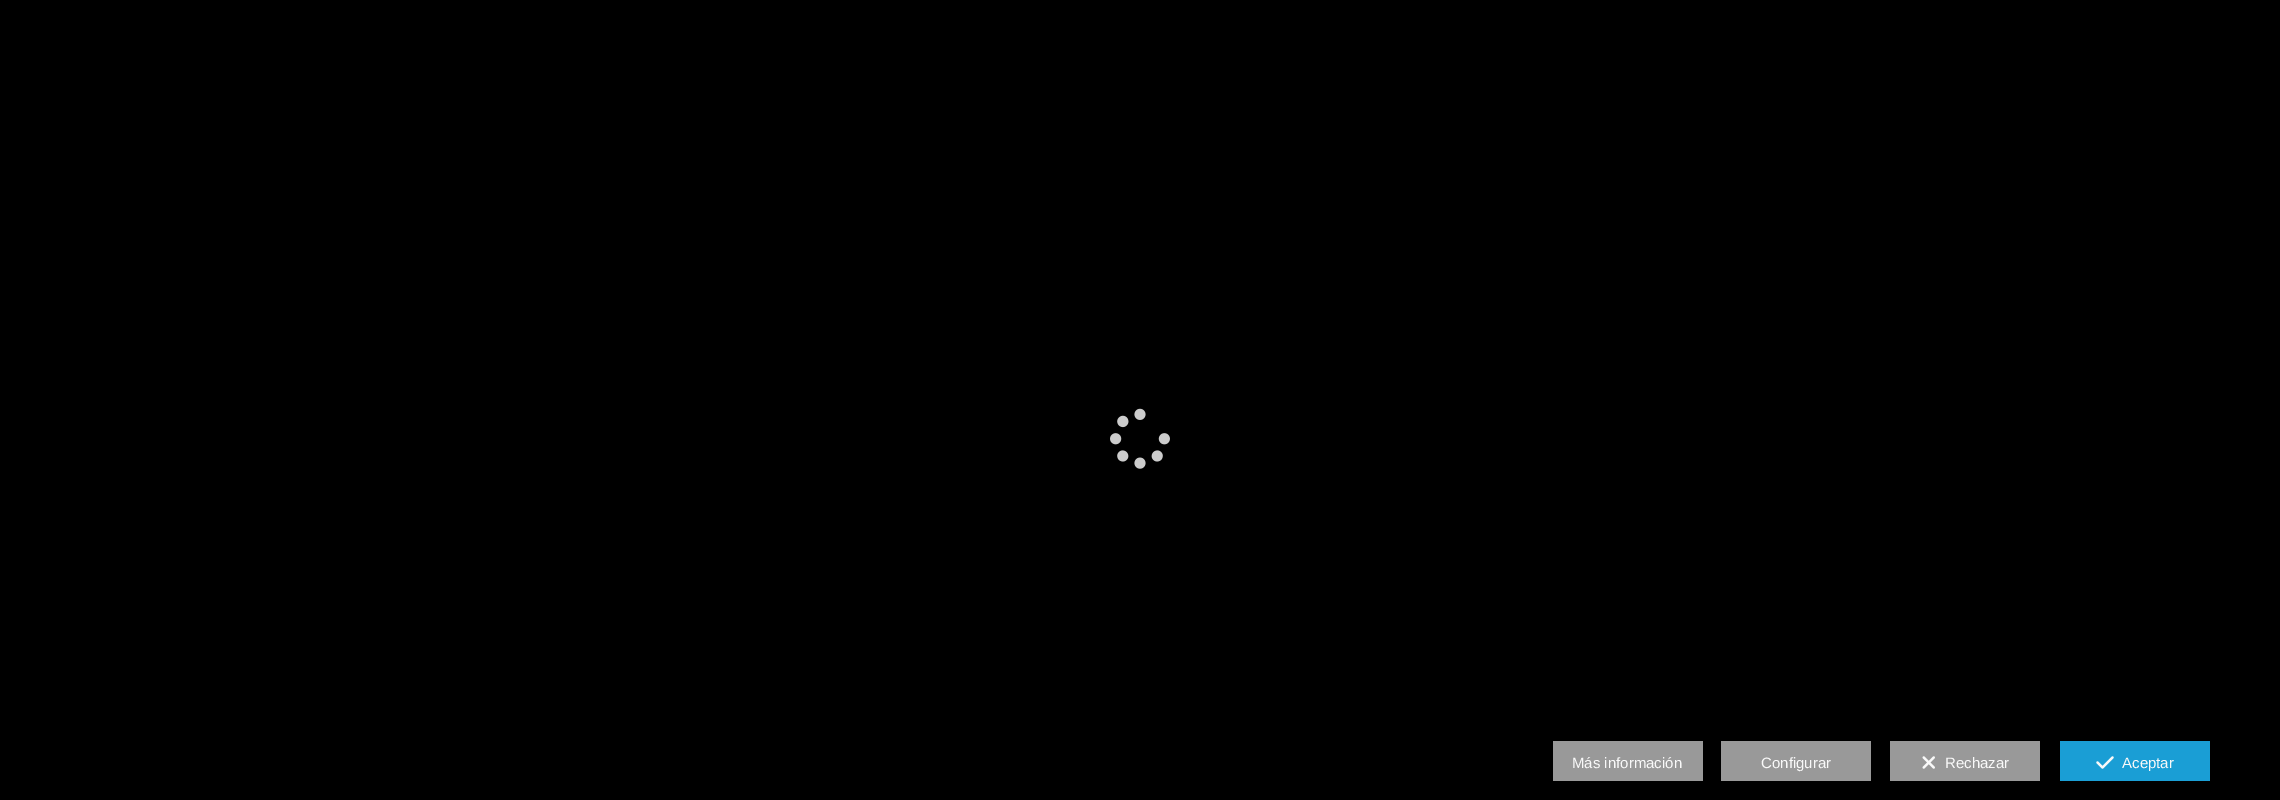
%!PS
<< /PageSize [2280 800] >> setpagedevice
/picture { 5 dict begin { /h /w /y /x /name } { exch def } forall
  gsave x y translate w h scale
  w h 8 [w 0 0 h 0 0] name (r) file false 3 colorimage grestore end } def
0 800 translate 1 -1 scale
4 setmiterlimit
0 setgray
0 0 2280 800 rectfill
(img1.rgb) 1110 408 60 61 picture
0.6 setgray
1553 741 150 40 rectfill
/LiberationSans-Regular [15 0 0 -15 0 0] selectfont
0.976 setgray
1572 768 moveto (Más información) show
0.6 setgray
1721 741 150 40 rectfill
0.976 setgray
1761 768 moveto (Configurar) show
0.6 setgray
1890 741 150 40 rectfill
(img2.rgb) 1922 756 13 13 picture
0.976 setgray
1945 768 moveto (Rechazar) show
0.102 0.62 0.835 setrgbcolor
2060 741 150 40 rectfill
(img3.rgb) 2096 756 18 13 picture
0.976 setgray
2122 768 moveto (Aceptar) show
showpage
